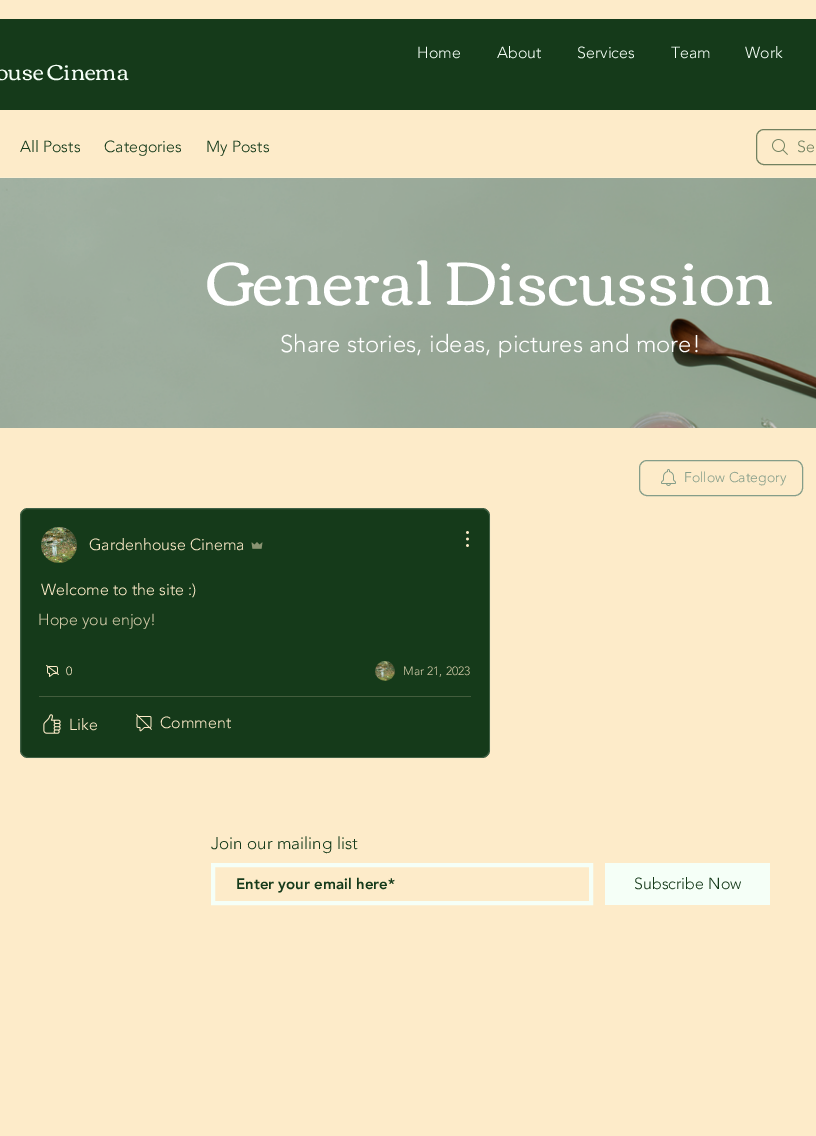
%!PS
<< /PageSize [816 1136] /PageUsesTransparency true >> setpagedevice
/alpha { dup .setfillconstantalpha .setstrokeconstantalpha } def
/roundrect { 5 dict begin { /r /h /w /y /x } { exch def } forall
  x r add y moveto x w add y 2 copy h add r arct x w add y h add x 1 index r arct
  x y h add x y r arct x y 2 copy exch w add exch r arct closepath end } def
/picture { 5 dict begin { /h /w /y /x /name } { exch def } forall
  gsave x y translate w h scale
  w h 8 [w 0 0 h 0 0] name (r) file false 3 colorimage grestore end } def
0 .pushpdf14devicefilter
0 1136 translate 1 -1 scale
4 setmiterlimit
0.992 0.922 0.788 setrgbcolor
0 0 816 1136 rectfill
0.082 0.227 0.102 setrgbcolor
0 19 816 91 rectfill
/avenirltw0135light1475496-Light [16 0 0 -16 0 0] selectfont
0.961 1 0.969 setrgbcolor
417 58 moveto (Home) show
497 58 moveto (About) show
577 58 moveto (Services) show
671 58 moveto (Team) show
745 58 moveto (Work) show
/Corben-Regular [22 0 0 -22 0 0] selectfont
-4 80 moveto (ouse Cinema) show
0.984 0.937 0.824 setrgbcolor
0 177 816 1 rectfill
/avenirltw0135light1475496-Light [16 0 0 -16 0 0] selectfont
0.082 0.227 0.102 setrgbcolor
20 152 moveto (All Posts) show
104 152 moveto (Categories) show
206 152 moveto (My Posts) show
(img1.rgb) 772 139 16 16 picture
0.447 0.506 0.376 setrgbcolor
756.5 129.5 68 35 7.5 roundrect stroke
797 152 moveto (Se) show
(img2.rgb) 0 178 816 250 picture
/Corben-Regular [62 0 0 -62 0 0] selectfont
1 setgray
206 305 moveto (General Discussion) show
/avenirltw0135light1475496-Light [24 0 0 -24 0 0] selectfont
280 352 moveto (Share stories, ideas, pictures and more!) show
0.522 0.616 0.537 setrgbcolor
639.5 460.5 163 35 7.5 roundrect stroke
(img3.rgb) 661 469 15 17 picture
/avenirltw0135light1475496-Light [14 0 0 -14 0 0] selectfont
684 482 moveto (Follow Category) show
0.082 0.227 0.102 setrgbcolor
20 508 470 250 8 roundrect fill
0.26 alpha
0.741 0.808 0.753 setrgbcolor
20.5 508.5 469 249 7.5 roundrect stroke
1 alpha
(img4.rgb) 41 527 36 36 picture
/avenirltw0135light1475496-Light [16 0 0 -16 0 0] selectfont
0.992 0.922 0.788 setrgbcolor
89 550 moveto (Gardenhouse Cinema) show
(img5.rgb) 251 542 12 7 picture
(img6.rgb) 466 531 3 16 picture
41 595 moveto (Welcome to the site :\)) show
0.812 0.784 0.651 setrgbcolor
38 625 moveto (Hope you enjoy!) show
(img7.rgb) 46 665 13 12 picture
/avenirltw0135light1475496-Light [12 0 0 -12 0 0] selectfont
0.992 0.922 0.788 setrgbcolor
66 675 moveto (0) show
(img8.rgb) 375 661 20 20 picture
0.812 0.784 0.651 setrgbcolor
403 675 moveto (Mar 21, 2023) show
0.263 0.365 0.239 setrgbcolor
39 696 432 1 rectfill
(img9.rgb) 43 714 18 20 picture
/avenirltw0135light1475496-Light [16 0 0 -16 0 0] selectfont
0.992 0.922 0.788 setrgbcolor
69 730 moveto (Like) show
(img10.rgb) 136 714 16 18 picture
160 728 moveto (Comment) show
/avenirltw0135light1475496-Light [17 0 0 -17 0 0] selectfont
0.082 0.227 0.102 setrgbcolor
211 849 moveto (Join our mailing list) show
0.961 1 0.969 setrgbcolor
4 setlinewidth
213 865 378 38 rectstroke
/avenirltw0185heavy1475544-Black [15 0 0 -15 0 0] selectfont
0.082 0.227 0.102 setrgbcolor
236 889 moveto (Enter your email here*) show
0.961 1 0.969 setrgbcolor
605 863 165 42 rectfill
/avenirltw0135light1475496-Light [16 0 0 -16 0 0] selectfont
0.082 0.227 0.102 setrgbcolor
634 889 moveto (Subscribe Now) show
.poppdf14devicefilter showpage
